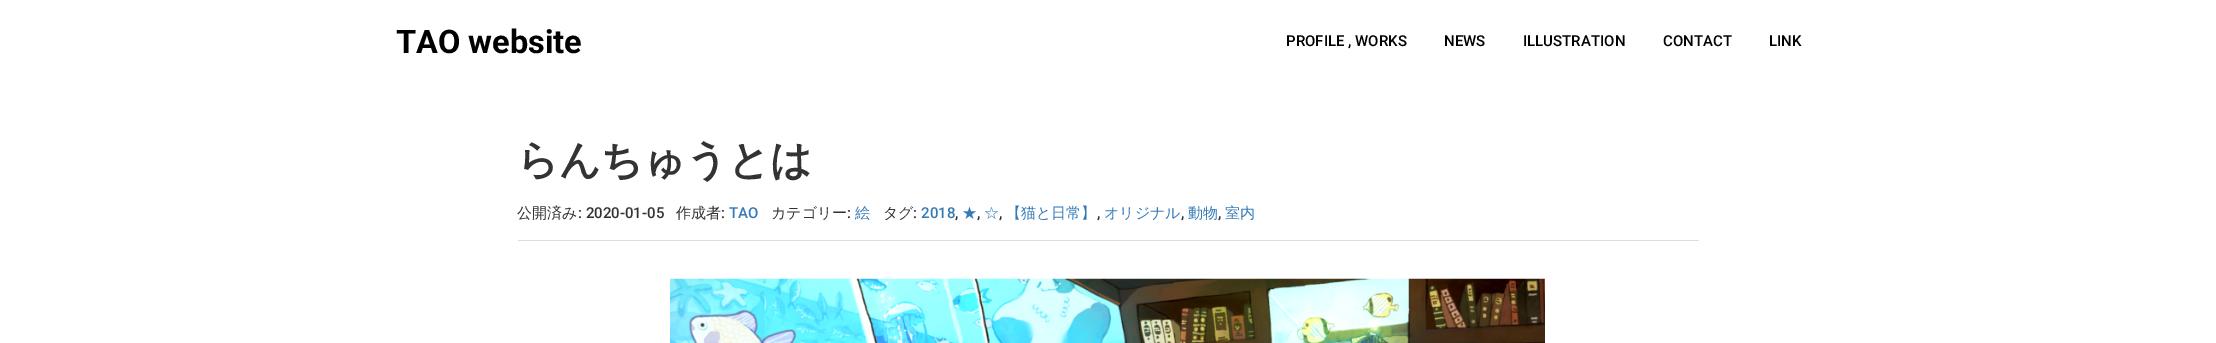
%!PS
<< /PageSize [2216 343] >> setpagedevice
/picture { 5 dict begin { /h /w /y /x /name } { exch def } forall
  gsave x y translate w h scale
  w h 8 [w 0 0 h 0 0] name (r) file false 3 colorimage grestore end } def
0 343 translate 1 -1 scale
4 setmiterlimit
1 setgray
0 0 2216 343 rectfill
/Roboto-Bold [32.5 0 0 -32.5 0 0] selectfont
0 setgray
396 53 moveto (TAO website) show
/Roboto-Medium [15 0 0 -15 0 0] selectfont
1286 46 moveto (PROFILE , WORKS) show
1444 46 moveto (NEWS) show
1523 46 moveto (ILLUSTRATION) show
1663 46 moveto (CONTACT) show
1769 46 moveto (LINK) show
/WenQuanYiZenHei-Bold [41.25 0 0 -41.25 0 0] selectfont
0.2 setgray
517 174 moveto (らんちゅうとは) show
0.867 setgray
518 240 1181 1 rectfill
/WenQuanYiZenHei-Medium [15 0 0 -15 0 0] selectfont
0.2 setgray
517 218 moveto (公開済み) show
/Roboto-Medium [15 0 0 -15 0 0] selectfont
578 218 moveto (: 2020-01-05) show
/WenQuanYiZenHei-Medium [15 0 0 -15 0 0] selectfont
676 218 moveto (作成者) show
/Roboto-Medium [15 0 0 -15 0 0] selectfont
721 218 moveto (:) show
0.2 0.478 0.718 setrgbcolor
729 218 moveto (TAO) show
/WenQuanYiZenHei-Medium [15 0 0 -15 0 0] selectfont
0.2 setgray
771 218 moveto (カテゴリー) show
/Roboto-Medium [15 0 0 -15 0 0] selectfont
847 218 moveto (:) show
/WenQuanYiZenHei-Medium [15 0 0 -15 0 0] selectfont
0.2 0.478 0.718 setrgbcolor
855 218 moveto (絵) show
0.2 setgray
883 218 moveto (タグ) show
/Roboto-Medium [15 0 0 -15 0 0] selectfont
913 218 moveto (:) show
0.2 0.478 0.718 setrgbcolor
921 218 moveto (2018) show
0.2 setgray
955 218 moveto (,) show
/WenQuanYiZenHei-Medium [15 0 0 -15 0 0] selectfont
0.2 0.478 0.718 setrgbcolor
962 218 moveto (★) show
/Roboto-Medium [15 0 0 -15 0 0] selectfont
0.2 setgray
977 218 moveto (,) show
/WenQuanYiZenHei-Medium [15 0 0 -15 0 0] selectfont
0.2 0.478 0.718 setrgbcolor
984 218 moveto (☆) show
/Roboto-Medium [15 0 0 -15 0 0] selectfont
0.2 setgray
999 218 moveto (,) show
/WenQuanYiZenHei-Medium [15 0 0 -15 0 0] selectfont
0.2 0.478 0.718 setrgbcolor
1006 218 moveto (【猫と日常】) show
/Roboto-Medium [15 0 0 -15 0 0] selectfont
0.2 setgray
1097 218 moveto (,) show
/WenQuanYiZenHei-Medium [15 0 0 -15 0 0] selectfont
0.2 0.478 0.718 setrgbcolor
1104 218 moveto (オリジナル) show
/Roboto-Medium [15 0 0 -15 0 0] selectfont
0.2 setgray
1181 218 moveto (,) show
/WenQuanYiZenHei-Medium [15 0 0 -15 0 0] selectfont
0.2 0.478 0.718 setrgbcolor
1188 218 moveto (動物) show
/Roboto-Medium [15 0 0 -15 0 0] selectfont
0.2 setgray
1218 218 moveto (,) show
/WenQuanYiZenHei-Medium [15 0 0 -15 0 0] selectfont
0.2 0.478 0.718 setrgbcolor
1225 218 moveto (室内) show
(img1.rgb) 670 278 875 65 picture
showpage
